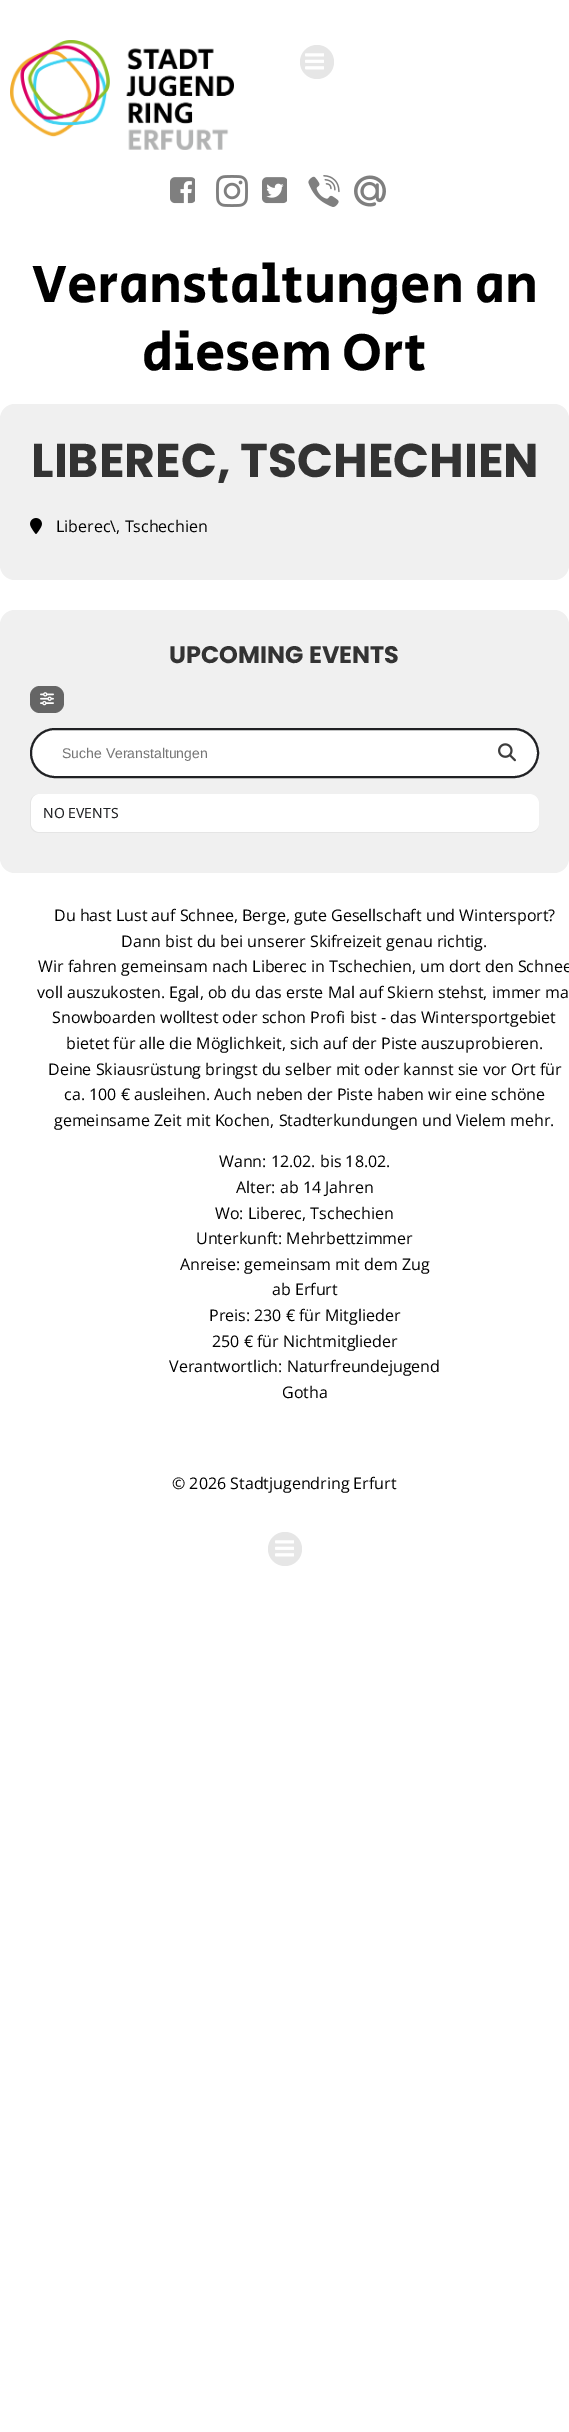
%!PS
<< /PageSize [569 2432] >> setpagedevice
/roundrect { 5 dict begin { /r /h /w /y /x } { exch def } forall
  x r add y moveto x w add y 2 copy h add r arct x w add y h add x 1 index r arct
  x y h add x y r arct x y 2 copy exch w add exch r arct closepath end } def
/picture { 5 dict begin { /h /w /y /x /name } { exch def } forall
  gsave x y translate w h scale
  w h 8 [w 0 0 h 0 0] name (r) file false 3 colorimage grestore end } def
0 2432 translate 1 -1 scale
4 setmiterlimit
1 setgray
0 0 569 2432 rectfill
(img1.rgb) 10 40 224 110 picture
0.902 setgray
newpath 317 62 17 0 360 arc closepath fill
(img2.rgb) 305 53 19 17 picture
(img3.rgb) 170 177 25 27 picture
(img4.rgb) 216 175 32 32 picture
(img5.rgb) 262 177 25 27 picture
(img6.rgb) 308 175 32 32 picture
(img7.rgb) 354 175 32 32 picture
/SecularOne-Regular [54 0 0 -54 0 0] selectfont
0 setgray
32 302 moveto (Veranstaltungen an) show
142 370 moveto (diesem Ort) show
0.941 setgray
0 404 569 176 15 roundrect fill
/Poppins-Bold [47.25 0 0 -47.25 0 0] selectfont
0.2 setgray
31 477 moveto (LIBEREC, TSCHECHIEN) show
(img8.rgb) 30 518 12 16 picture
/OpenSans-Regular [16 0 0 -16 0 0] selectfont
0 setgray
56 532 moveto (Liberec\\, Tschechien) show
0.941 setgray
0 610 569 263 15 roundrect fill
/Poppins-Bold [24 0 0 -24 0 0] selectfont
0.2 setgray
169 663 moveto (UPCOMING EVENTS) show
0.396 setgray
30 686 34 27 10 roundrect fill
(img9.rgb) 40 692 14 14 picture
1 setgray
31 729 507 48 24 roundrect gsave fill grestore
0.125 0.129 0.141 setrgbcolor
2 setlinewidth
stroke
/LiberationSans-Regular [14 0 0 -14 0 0] selectfont
0.459 setgray
62 758 moveto (Suche Veranstaltungen) show
(img10.rgb) 498 743 18 19 picture
0.898 setgray
newpath 40 794 moveto 529 794 lineto 535 794 539 798 539 804 curveto 539 823 lineto 539 829 535 833 529 833 curveto 40 833 lineto 34 833 30 829 30 823 curveto 30 804 lineto 30 798 34 794 40 794 curveto closepath 40 794 moveto 529 794 lineto 535 794 539 798 539 804 curveto 539 823 lineto 539 828 535 832 529 832 curveto 40 832 lineto 35 832 31 828 31 823 curveto 31 804 lineto 31 798 35 794 40 794 curveto closepath eofill
1 setgray
newpath 40 794 moveto 35 794 31 798 31 804 curveto 31 823 lineto 31 828 35 832 40 832 curveto 529 832 lineto 535 832 539 828 539 823 curveto 539 804 lineto 539 798 535 794 529 794 curveto closepath fill
/NotoSans-Regular [14 0 0 -14 0 0] selectfont
0.125 0.129 0.141 setrgbcolor
43 818 moveto (NO EVENTS) show
/OpenSans-Regular [16 0 0 -16 0 0] selectfont
0 setgray
54 921 moveto (Du hast Lust auf Schnee, Berge, gute Gesellschaft und Wintersport?) show
121 947 moveto (Dann bist du bei unserer Skifreizeit genau richtig.) show
38 972 moveto (Wir fahren gemeinsam nach Liberec in Tschechien, um dort den Schnee) show
37 998 moveto (voll auszukosten. Egal, ob du das erste Mal auf Skiern stehst, immer ma) show
52 1023 moveto (Snowboarden wolltest oder schon Profi bist - das Wintersportgebiet) show
66 1049 moveto (bietet für alle die Möglichkeit, sich auf der Piste auszuprobieren.) show
48 1075 moveto (Deine Skiausrüstung bringst du selber mit oder kannst sie vor Ort für) show
64 1100 moveto (ca. 100 € ausleihen. Auch neben der Piste haben wir eine schöne) show
54 1126 moveto (gemeinsame Zeit mit Kochen, Stadterkundungen und Vielem mehr.) show
219 1167 moveto (Wann: 12.02. bis 18.02.) show
236 1193 moveto (Alter: ab 14 Jahren) show
215 1219 moveto (Wo: Liberec, Tschechien) show
196 1244 moveto (Unterkunft: Mehrbettzimmer) show
180 1270 moveto (Anreise: gemeinsam mit dem Zug) show
272 1295 moveto (ab Erfurt) show
209 1321 moveto (Preis: 230 € für Mitglieder) show
212 1347 moveto (250 € für Nichtmitglieder) show
169 1372 moveto (Verantwortlich: Naturfreundejugend) show
282 1398 moveto (Gotha) show
172 1489 moveto (© 2026 Stadtjugendring Erfurt) show
0.902 setgray
newpath 285 1549 17 0 360 arc closepath fill
(img2.rgb) 275 1540 19 17 picture
showpage
